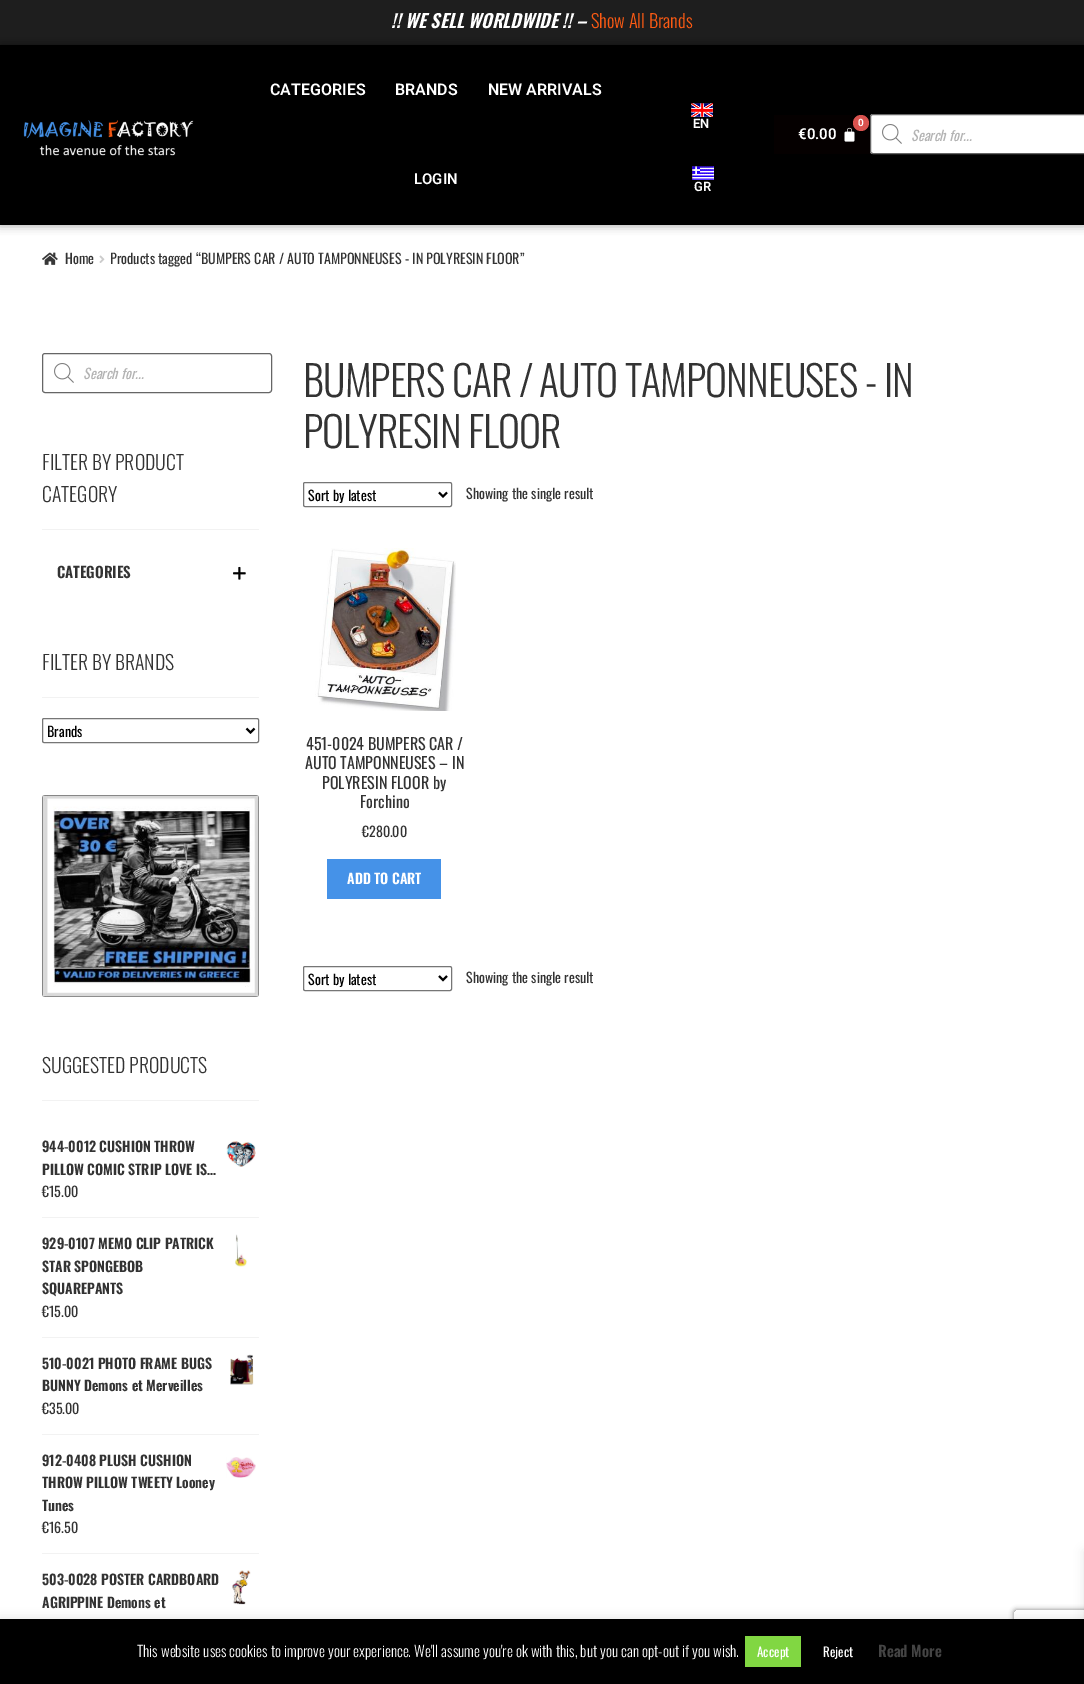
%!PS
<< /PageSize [1084 1684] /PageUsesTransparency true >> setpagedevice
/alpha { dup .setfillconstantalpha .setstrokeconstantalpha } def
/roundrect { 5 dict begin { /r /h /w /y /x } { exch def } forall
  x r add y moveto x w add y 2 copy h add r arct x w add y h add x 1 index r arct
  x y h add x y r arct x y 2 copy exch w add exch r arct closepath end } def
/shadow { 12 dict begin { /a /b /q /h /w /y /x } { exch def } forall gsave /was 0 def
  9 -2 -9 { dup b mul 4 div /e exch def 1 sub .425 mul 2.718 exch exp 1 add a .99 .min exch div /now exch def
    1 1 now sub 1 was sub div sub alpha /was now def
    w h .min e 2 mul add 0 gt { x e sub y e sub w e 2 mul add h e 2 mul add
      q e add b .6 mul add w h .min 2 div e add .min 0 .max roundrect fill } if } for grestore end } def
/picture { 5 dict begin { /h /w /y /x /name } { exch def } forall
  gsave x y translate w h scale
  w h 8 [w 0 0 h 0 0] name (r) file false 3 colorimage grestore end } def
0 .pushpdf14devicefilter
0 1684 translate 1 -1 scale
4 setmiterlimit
1 setgray
0 0 1084 1684 rectfill
0.118 setgray
0 0 1084 45 rectfill
/Oswald-SemiBoldItalic [18.4 0 0 -18.4 0 0] selectfont
1 setgray
391 28 moveto (!! WE SELL WORLDWIDE !! –) show
/Oswald-Light [18.4 0 0 -18.4 0 0] selectfont
0.984 0.353 0.075 setrgbcolor
591 28 moveto (Show All Brands) show
0 setgray
0 45 1084 179 0 5 0.5 shadow
0 45 1084 180 rectfill
(img1.rgb) 23 120 171 36 picture
/Roboto-SemiBold [16 0 0 -16 0 0] selectfont
1 setgray
270 95 moveto (CATEGORIES) show
395 95 moveto (BRANDS) show
488 95 moveto (NEW ARRIVALS) show
/Roboto-SemiBold [15 0 0 -15 0 0] selectfont
414 184 moveto (LOGIN) show
(img2.rgb) 691 103 22 14 picture
/Roboto-SemiBold [13 0 0 -13 0 0] selectfont
693 128 moveto (EN) show
(img3.rgb) 692 166 22 14 picture
694 191 moveto (GR) show
0.02 0 0 setrgbcolor
774 115 99 39 rectfill
(img4.rgb) 844 127 11 15 picture
0.851 0.325 0.31 setrgbcolor
newpath 861 123 8 0 360 arc closepath fill
/Roboto-SemiBold [10 0 0 -10 0 0] selectfont
1 setgray
858 126 moveto (0) show
/Roboto-SemiBold [15 0 0 -15 0 0] selectfont
798 139 moveto (€0.00) show
newpath 873 114 moveto 1084 114 lineto 1084 154 lineto 873 154 lineto 871.5 154 870 152.5 870 151 curveto 870 117 lineto 870 115.5 871.5 114 873 114 curveto closepath fill
0.4 setgray
870.5 114.5 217 39 2.5 roundrect stroke
(img5.rgb) 882 124 20 20 picture
/Oswald-Italic [14 0 0 -14 0 0] selectfont
0.702 setgray
911 141 moveto (Search for...) show
(img6.rgb) 42 252 16 13 picture
/Oswald-Regular [14 0 0 -14 0 0] selectfont
0.2 setgray
65 264 moveto (Home) show
(img7.rgb) 99 255 6 8 picture
110 264 moveto (Products tagged “BUMPERS CAR / AUTO TAMPONNEUSES - IN POLYRESIN FLOOR”) show
0.4 setgray
42.5 353.5 229 39 2.5 roundrect stroke
(img5.rgb) 54 363 20 20 picture
/Oswald-Italic [14 0 0 -14 0 0] selectfont
0.702 setgray
83 379 moveto (Search for...) show
0.949 setgray
42 529 217 1 rectfill
/Oswald-Light [19.75 0 0 -19.75 0 0] selectfont
0.2 setgray
42 470 moveto (FILTER BY PRODUCT) show
42 502 moveto (CATEGORY) show
/Oswald-SemiBold [15 0 0 -15 0 0] selectfont
57 578 moveto (CATEGORIES) show
(img8.rgb) 233 566 13 14 picture
0.949 setgray
42 697 217 1 rectfill
/Oswald-Light [19.75 0 0 -19.75 0 0] selectfont
0.2 setgray
42 670 moveto (FILTER BY BRANDS) show
0.463 setgray
42.5 718.5 216 24 1.5 roundrect stroke
0 setgray
2 setlinewidth
newpath 246.5 728.5 moveto 250.5 732.5 lineto 254.5 728.5 lineto stroke
/Oswald-Regular [14 0 0 -14 0 0] selectfont
47 737 moveto (Brands) show
(img9.rgb) 42 795 217 202 picture
0.949 setgray
42 1100 217 1 rectfill
/Oswald-Light [19.75 0 0 -19.75 0 0] selectfont
0.2 setgray
42 1073 moveto (SUGGESTED PRODUCTS) show
0.949 setgray
42 1217 217 1 rectfill
/Oswald-SemiBold [14 0 0 -14 0 0] selectfont
0.2 setgray
42 1152 moveto (944-0012 CUSHION THROW) show
(img10.rgb) 226 1141 30 26 picture
42 1175 moveto (PILLOW COMIC STRIP LOVE IS…) show
/Oswald-Regular [14 0 0 -14 0 0] selectfont
42 1197 moveto (€15.00) show
0.949 setgray
42 1337 217 1 rectfill
/Oswald-SemiBold [14 0 0 -14 0 0] selectfont
0.2 setgray
42 1249 moveto (929-0107 MEMO CLIP PATRICK) show
(img11.rgb) 235 1234 12 33 picture
42 1272 moveto (STAR SPONGEBOB) show
42 1294 moveto (SQUAREPANTS) show
/Oswald-Regular [14 0 0 -14 0 0] selectfont
42 1317 moveto (€15.00) show
0.949 setgray
42 1434 217 1 rectfill
/Oswald-SemiBold [14 0 0 -14 0 0] selectfont
0.2 setgray
42 1369 moveto (510-0021 PHOTO FRAME BUGS) show
(img12.rgb) 230 1354 24 31 picture
42 1391 moveto (BUNNY Demons et Merveilles) show
/Oswald-Regular [14 0 0 -14 0 0] selectfont
42 1414 moveto (€35.00) show
0.949 setgray
42 1553 217 1 rectfill
/Oswald-SemiBold [14 0 0 -14 0 0] selectfont
0.2 setgray
42 1466 moveto (912-0408 PLUSH CUSHION) show
(img13.rgb) 226 1457 30 21 picture
42 1488 moveto (THROW PILLOW TWEETY Looney) show
42 1511 moveto (Tunes) show
/Oswald-Regular [14 0 0 -14 0 0] selectfont
42 1533 moveto (€16.50) show
/Oswald-SemiBold [14 0 0 -14 0 0] selectfont
42 1585 moveto (503-0028 POSTER CARDBOARD) show
(img14.rgb) 232 1570 19 35 picture
42 1608 moveto (AGRIPPINE Demons et) show
/Oswald-Light [41.9 0 0 -41.9 0 0] selectfont
303 397 moveto -1 0 (BUMPERS CAR / AUTO TAMPONNEUSES - IN) ashow
303 448 moveto -1 0 (POLYRESIN FLOOR) ashow
0.463 setgray
1 setlinewidth
303.5 482.5 148 24 1.5 roundrect stroke
0 setgray
2 setlinewidth
newpath 439 492.5 moveto 443 496.5 lineto 447 492.5 lineto stroke
/Oswald-Regular [14 0 0 -14 0 0] selectfont
308 501 moveto (Sort by latest) show
0.2 setgray
466 499 moveto (Showing the single result) show
(img15.rgb) 315 548 141 163 picture
/Oswald-Regular [16 0 0 -16 0 0] selectfont
306 750 moveto (451-0024 BUMPERS CAR /) show
305 769 moveto (AUTO TAMPONNEUSES – IN) show
322 789 moveto (POLYRESIN FLOOR by) show
360 808 moveto (Forchino) show
/Oswald-Regular [14 0 0 -14 0 0] selectfont
362 837 moveto (€280.00) show
0.271 0.573 0.91 setrgbcolor
327 859 114 40 rectfill
/Oswald-SemiBold [14 0 0 -14 0 0] selectfont
1 setgray
347 884 moveto (ADD TO CART) show
0.463 setgray
1 setlinewidth
303.5 966.5 148 24 1.5 roundrect stroke
0 setgray
2 setlinewidth
newpath 439 976 moveto 443 980 lineto 447 976 lineto stroke
/Oswald-Regular [14 0 0 -14 0 0] selectfont
308 985 moveto (Sort by latest) show
0.2 setgray
466 983 moveto (Showing the single result) show
0.675 0.671 0.671 setrgbcolor
0 1618 1084 65 0 5 0.3 shadow
gsave
newpath 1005 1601 moveto 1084 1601 lineto 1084 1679 lineto 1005 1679 lineto closepath 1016 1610 moveto 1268 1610 lineto 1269 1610 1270 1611 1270 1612 curveto 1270 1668 lineto 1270 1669 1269 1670 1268 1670 curveto 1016 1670 lineto 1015 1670 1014 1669 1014 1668 curveto 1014 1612 lineto 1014 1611 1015 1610 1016 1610 curveto closepath eoclip newpath
0.502 setgray
1014 1610 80 60 2 2.5 1 shadow
grestore
0 setgray
0 1619 1084 65 rectfill
1084 1551 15 128 0 5 0.1 shadow
/Oswald-Light [15 0 0 -15 0 0] selectfont
1 setgray
137 1657 moveto (This website uses cookies to improve your experience. We'll assume you're ok with this, but you can opt-out if you wish.) show
0.506 0.843 0.259 setrgbcolor
745 1636 56 31 rectfill
/Oswald-Regular [13 0 0 -13 0 0] selectfont
1 setgray
757 1657 moveto (Accept) show
823 1657 moveto (Reject) show
/Oswald-SemiBold [15 0 0 -15 0 0] selectfont
0.267 setgray
878 1657 moveto (Read More) show
.poppdf14devicefilter showpage
